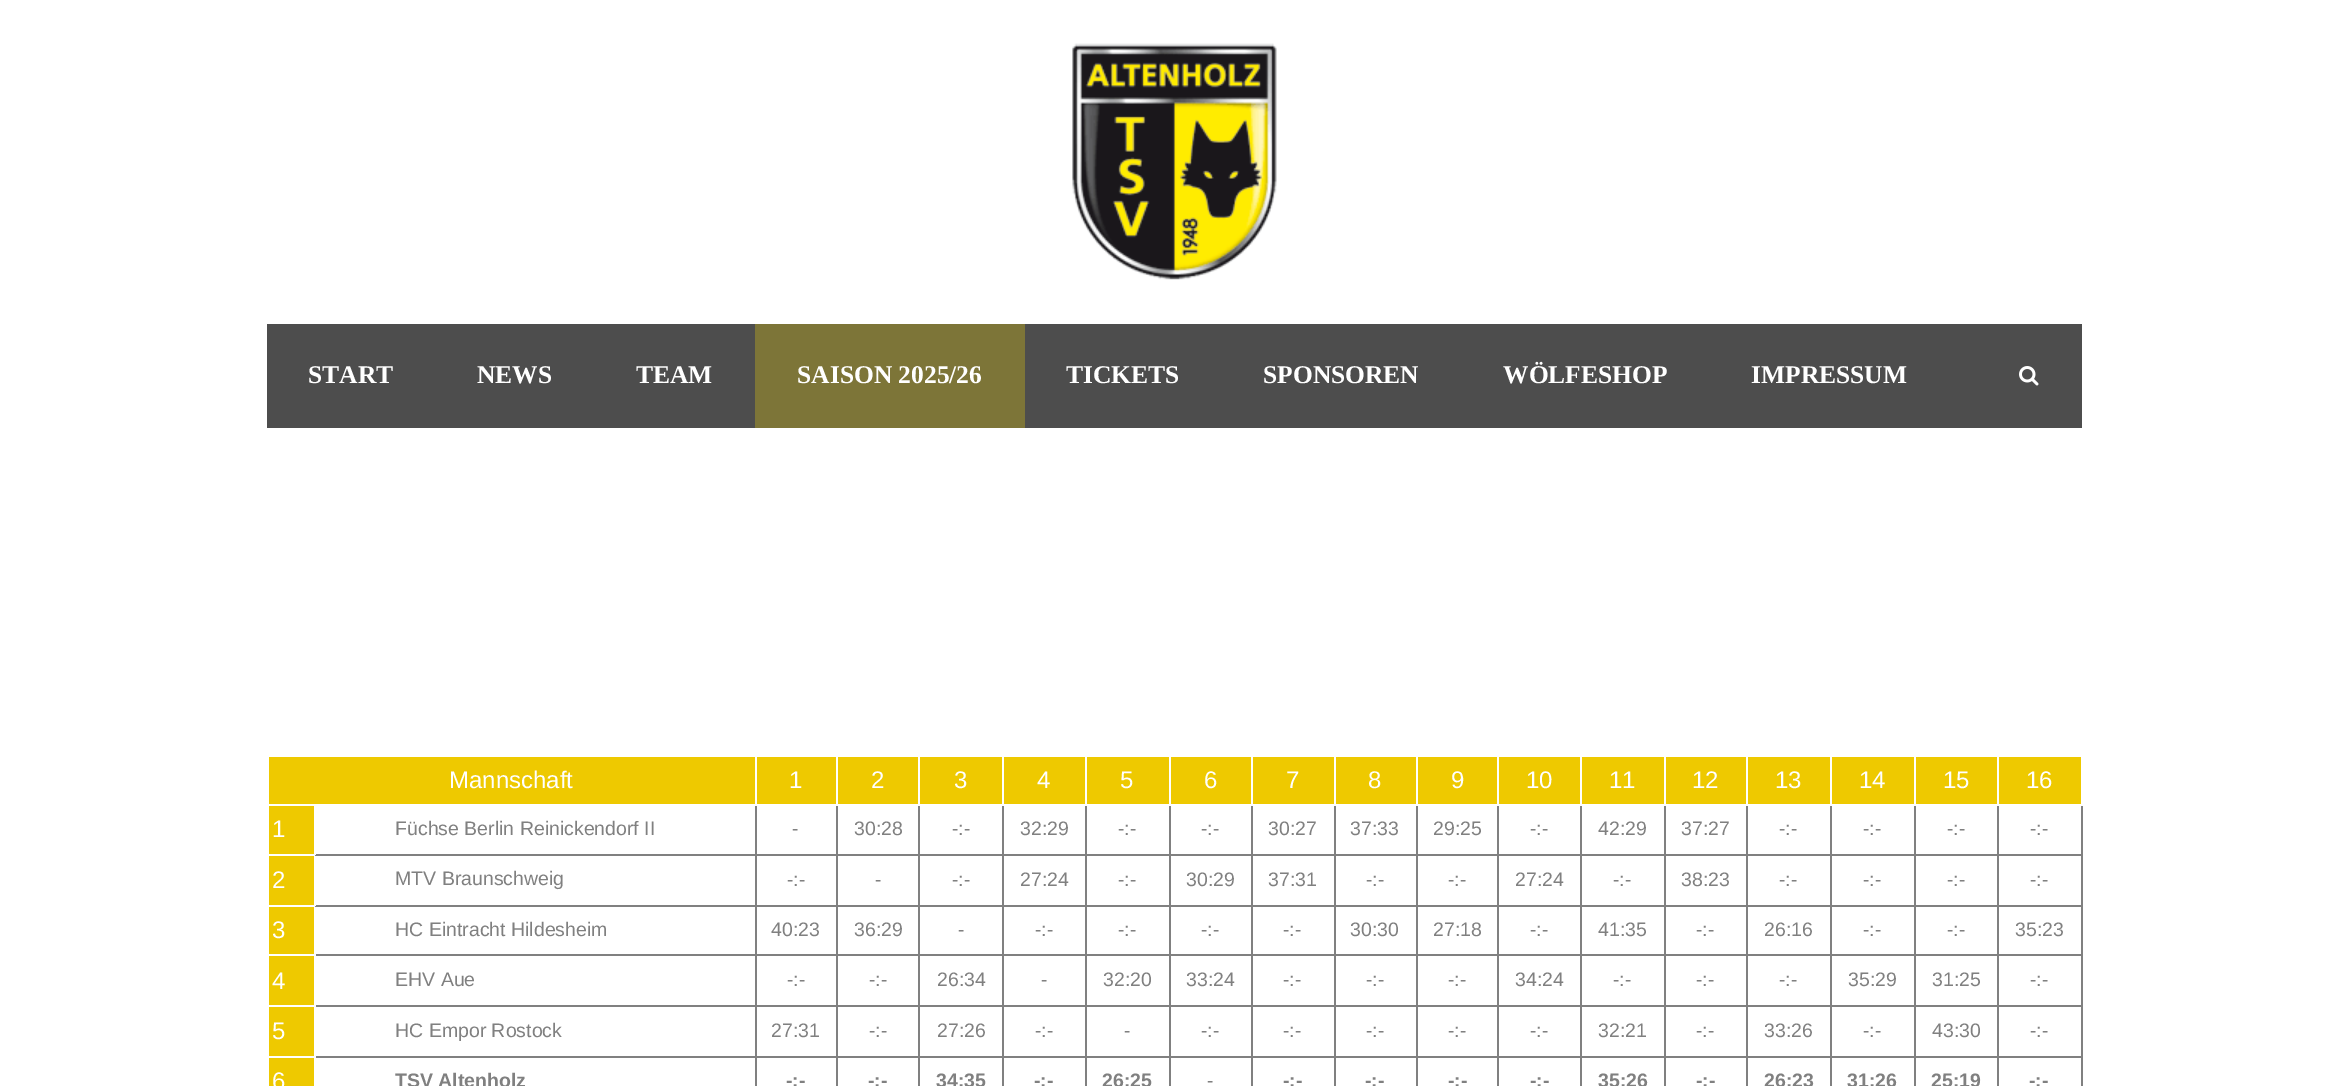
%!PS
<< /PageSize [2347 1086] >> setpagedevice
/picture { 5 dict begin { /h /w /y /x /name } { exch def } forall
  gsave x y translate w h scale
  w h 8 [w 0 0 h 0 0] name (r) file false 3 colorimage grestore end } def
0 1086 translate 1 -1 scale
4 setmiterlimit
1 setgray
0 0 2347 1086 rectfill
(img1.rgb) 1072 43 205 237 picture
0.302 setgray
267 324 1815 104 rectfill
/LiberationSerif-Bold [25.5 0 0 -25.5 0 0] selectfont
1 setgray
308 383 moveto (START) show
477 383 moveto (NEWS) show
636 383 moveto (TEAM) show
0.49 0.459 0.22 setrgbcolor
755 324 270 104 rectfill
1 setgray
797 383 moveto (SAISON 2025/26) show
1066 383 moveto (TICKETS) show
1263 383 moveto (SPONSOREN) show
1503 383 moveto (WÖLFESHOP) show
1751 383 moveto (IMPRESSUM) show
(img2.rgb) 2019 366 20 20 picture
0.502 setgray
2081 806 2 280 rectfill
0.933 0.788 0 setrgbcolor
269 757 486 47 rectfill
/LiberationSans-Regular [24 0 0 -24 0 0] selectfont
1 setgray
449 788 moveto (Mannschaft) show
0.933 0.788 0 setrgbcolor
757 757 79 47 rectfill
0.502 setgray
1997 854 85 2 rectfill
1997 905 85 2 rectfill
1997 954 85 2 rectfill
1997 1005 85 2 rectfill
1997 1056 85 2 rectfill
1997 1056 2 30 rectfill
1914 1056 84 2 rectfill
1997 1005 2 53 rectfill
1914 1005 84 2 rectfill
1997 954 2 53 rectfill
1914 954 84 2 rectfill
1997 905 2 51 rectfill
1914 905 84 2 rectfill
1997 854 2 52 rectfill
1914 854 84 2 rectfill
1914 1056 2 30 rectfill
1830 1056 86 2 rectfill
1914 1005 2 53 rectfill
1830 1005 86 2 rectfill
1914 954 2 53 rectfill
1830 954 86 2 rectfill
1914 905 2 51 rectfill
1830 905 86 2 rectfill
1914 854 2 52 rectfill
1830 854 86 2 rectfill
1830 1056 2 30 rectfill
1746 1056 86 2 rectfill
1830 1005 2 53 rectfill
1746 1005 86 2 rectfill
1830 954 2 53 rectfill
1746 954 86 2 rectfill
1830 905 2 51 rectfill
1746 905 86 2 rectfill
1830 854 2 52 rectfill
1746 854 86 2 rectfill
1746 1056 2 30 rectfill
1664 1056 84 2 rectfill
1746 1005 2 53 rectfill
1664 1005 84 2 rectfill
1746 954 2 53 rectfill
1664 954 84 2 rectfill
1746 905 2 51 rectfill
1664 905 84 2 rectfill
1746 854 2 52 rectfill
1664 854 84 2 rectfill
1664 1056 2 30 rectfill
1580 1056 85 2 rectfill
1664 1005 2 53 rectfill
1580 1005 85 2 rectfill
1664 954 2 53 rectfill
1580 954 85 2 rectfill
1664 905 2 51 rectfill
1580 905 85 2 rectfill
1664 854 2 52 rectfill
1580 854 85 2 rectfill
1580 1056 2 30 rectfill
1497 1056 84 2 rectfill
1580 1005 2 53 rectfill
1497 1005 84 2 rectfill
1580 954 2 53 rectfill
1497 954 84 2 rectfill
1580 905 2 51 rectfill
1497 905 84 2 rectfill
1580 854 2 52 rectfill
1497 854 84 2 rectfill
1497 1056 2 30 rectfill
1416 1056 83 2 rectfill
1497 1005 2 53 rectfill
1416 1005 83 2 rectfill
1497 954 2 53 rectfill
1416 954 83 2 rectfill
1497 905 2 51 rectfill
1416 905 83 2 rectfill
1497 854 2 52 rectfill
1416 854 83 2 rectfill
1416 1056 2 30 rectfill
1334 1056 84 2 rectfill
1416 1005 2 53 rectfill
1334 1005 84 2 rectfill
1416 954 2 53 rectfill
1334 954 84 2 rectfill
1416 905 2 51 rectfill
1334 905 84 2 rectfill
1416 854 2 52 rectfill
1334 854 84 2 rectfill
1334 1056 2 30 rectfill
1251 1056 84 2 rectfill
1334 1005 2 53 rectfill
1251 1005 84 2 rectfill
1334 954 2 53 rectfill
1251 954 84 2 rectfill
1334 905 2 51 rectfill
1251 905 84 2 rectfill
1334 854 2 52 rectfill
1251 854 84 2 rectfill
1251 1056 2 30 rectfill
1169 1056 84 2 rectfill
1251 1005 2 53 rectfill
1169 1005 84 2 rectfill
1251 954 2 53 rectfill
1169 954 84 2 rectfill
1251 905 2 51 rectfill
1169 905 84 2 rectfill
1251 854 2 52 rectfill
1169 854 84 2 rectfill
1169 1056 2 30 rectfill
1085 1056 85 2 rectfill
1169 1005 2 53 rectfill
1085 1005 85 2 rectfill
1169 954 2 53 rectfill
1085 954 85 2 rectfill
1169 905 2 51 rectfill
1085 905 85 2 rectfill
1169 854 2 52 rectfill
1085 854 85 2 rectfill
1085 1056 2 30 rectfill
1002 1056 84 2 rectfill
1085 1005 2 53 rectfill
1002 1005 84 2 rectfill
1085 954 2 53 rectfill
1002 954 84 2 rectfill
1085 905 2 51 rectfill
1002 905 84 2 rectfill
1085 854 2 52 rectfill
1002 854 84 2 rectfill
1002 1056 2 30 rectfill
918 1056 86 2 rectfill
1002 1005 2 53 rectfill
918 1005 86 2 rectfill
1002 954 2 53 rectfill
918 954 86 2 rectfill
1002 905 2 51 rectfill
918 905 86 2 rectfill
1002 854 2 52 rectfill
918 854 86 2 rectfill
918 1056 2 30 rectfill
836 1056 84 2 rectfill
918 1005 2 53 rectfill
836 1005 84 2 rectfill
918 954 2 53 rectfill
836 954 84 2 rectfill
918 905 2 51 rectfill
836 905 84 2 rectfill
918 854 2 52 rectfill
836 854 84 2 rectfill
836 1056 2 30 rectfill
755 1056 82 2 rectfill
836 1005 2 53 rectfill
755 1005 82 2 rectfill
836 954 2 53 rectfill
755 954 82 2 rectfill
836 905 2 51 rectfill
755 905 82 2 rectfill
836 854 2 52 rectfill
755 854 82 2 rectfill
755 1056 2 30 rectfill
755 1005 2 53 rectfill
755 954 2 53 rectfill
755 905 2 51 rectfill
755 804 2 102 rectfill
1 setgray
755 804 2 2 rectfill
789 788 moveto (1) show
0.933 0.788 0 setrgbcolor
838 757 80 47 rectfill
0.502 setgray
836 804 2 51 rectfill
1 setgray
836 804 2 2 rectfill
871 788 moveto (2) show
0.933 0.788 0 setrgbcolor
920 757 82 47 rectfill
0.502 setgray
918 804 2 51 rectfill
1 setgray
918 804 2 2 rectfill
954 788 moveto (3) show
0.933 0.788 0 setrgbcolor
1004 757 81 47 rectfill
0.502 setgray
1002 804 2 51 rectfill
1 setgray
1002 804 2 2 rectfill
1037 788 moveto (4) show
0.933 0.788 0 setrgbcolor
1087 757 82 47 rectfill
0.502 setgray
1085 804 2 51 rectfill
1 setgray
1085 804 2 2 rectfill
1120 788 moveto (5) show
0.933 0.788 0 setrgbcolor
1171 757 80 47 rectfill
0.502 setgray
1169 804 2 51 rectfill
1 setgray
1169 804 2 2 rectfill
1204 788 moveto (6) show
0.933 0.788 0 setrgbcolor
1253 757 81 47 rectfill
0.502 setgray
1251 804 2 51 rectfill
1 setgray
1251 804 2 2 rectfill
1286 788 moveto (7) show
0.933 0.788 0 setrgbcolor
1336 757 80 47 rectfill
0.502 setgray
1334 804 2 51 rectfill
1 setgray
1334 804 2 2 rectfill
1368 788 moveto (8) show
0.933 0.788 0 setrgbcolor
1418 757 79 47 rectfill
0.502 setgray
1416 804 2 51 rectfill
1 setgray
1416 804 2 2 rectfill
1451 788 moveto (9) show
0.933 0.788 0 setrgbcolor
1499 757 81 47 rectfill
0.502 setgray
1497 804 2 51 rectfill
1 setgray
1497 804 2 2 rectfill
1526 788 moveto (10) show
0.933 0.788 0 setrgbcolor
1582 757 82 47 rectfill
0.502 setgray
1580 804 2 51 rectfill
1 setgray
1580 804 2 2 rectfill
1609 788 moveto (11) show
0.933 0.788 0 setrgbcolor
1666 757 80 47 rectfill
0.502 setgray
1664 804 2 51 rectfill
1 setgray
1664 804 2 2 rectfill
1692 788 moveto (12) show
0.933 0.788 0 setrgbcolor
1748 757 82 47 rectfill
0.502 setgray
1746 804 2 51 rectfill
1 setgray
1746 804 2 2 rectfill
1775 788 moveto (13) show
0.933 0.788 0 setrgbcolor
1832 757 82 47 rectfill
0.502 setgray
1830 804 2 51 rectfill
1 setgray
1830 804 2 2 rectfill
1859 788 moveto (14) show
0.933 0.788 0 setrgbcolor
1916 757 81 47 rectfill
0.502 setgray
1914 804 2 51 rectfill
1 setgray
1914 804 2 2 rectfill
1943 788 moveto (15) show
0.933 0.788 0 setrgbcolor
1999 757 82 47 rectfill
0.502 setgray
1997 804 2 51 rectfill
1 setgray
1997 804 2 2 rectfill
2026 788 moveto (16) show
0.933 0.788 0 setrgbcolor
269 806 45 48 rectfill
0.502 setgray
314 854 442 2 rectfill
1 setgray
314 854 2 1 rectfill
314 855 1 1 rectfill
272 837 moveto (1) show
/LiberationSans-Regular [19.5 0 0 -19.5 0 0] selectfont
0.502 setgray
395 835 moveto (Füchse Berlin Reinickendorf II) show
792 835 moveto (-) show
854 835 moveto (30:28) show
952 835 moveto (-:-) show
1020 835 moveto (32:29) show
1118 835 moveto (-:-) show
1201 835 moveto (-:-) show
1268 835 moveto (30:27) show
1350 835 moveto (37:33) show
1433 835 moveto (29:25) show
1530 835 moveto (-:-) show
1598 835 moveto (42:29) show
1681 835 moveto (37:27) show
1779 835 moveto (-:-) show
1863 835 moveto (-:-) show
1947 835 moveto (-:-) show
2030 835 moveto (-:-) show
0.933 0.788 0 setrgbcolor
269 856 45 49 rectfill
0.502 setgray
314 905 442 2 rectfill
1 setgray
314 905 2 1 rectfill
314 906 1 1 rectfill
/LiberationSans-Regular [24 0 0 -24 0 0] selectfont
272 888 moveto (2) show
/LiberationSans-Regular [19.5 0 0 -19.5 0 0] selectfont
0.502 setgray
395 885 moveto (MTV Braunschweig) show
787 886 moveto (-:-) show
875 886 moveto (-) show
952 886 moveto (-:-) show
1020 886 moveto (27:24) show
1118 886 moveto (-:-) show
1186 886 moveto (30:29) show
1268 886 moveto (37:31) show
1366 886 moveto (-:-) show
1448 886 moveto (-:-) show
1515 886 moveto (27:24) show
1613 886 moveto (-:-) show
1681 886 moveto (38:23) show
1779 886 moveto (-:-) show
1863 886 moveto (-:-) show
1947 886 moveto (-:-) show
2030 886 moveto (-:-) show
0.933 0.788 0 setrgbcolor
269 907 45 47 rectfill
0.502 setgray
314 954 442 2 rectfill
1 setgray
314 954 2 2 rectfill
/LiberationSans-Regular [24 0 0 -24 0 0] selectfont
272 938 moveto (3) show
/LiberationSans-Regular [19.5 0 0 -19.5 0 0] selectfont
0.502 setgray
395 936 moveto (HC Eintracht Hildesheim) show
771 936 moveto (40:23) show
854 936 moveto (36:29) show
958 936 moveto (-) show
1035 936 moveto (-:-) show
1118 936 moveto (-:-) show
1201 936 moveto (-:-) show
1283 936 moveto (-:-) show
1350 936 moveto (30:30) show
1433 936 moveto (27:18) show
1530 936 moveto (-:-) show
1598 936 moveto (41:35) show
1696 936 moveto (-:-) show
1764 936 moveto (26:16) show
1863 936 moveto (-:-) show
1947 936 moveto (-:-) show
2015 936 moveto (35:23) show
0.933 0.788 0 setrgbcolor
269 956 45 49 rectfill
0.502 setgray
314 1005 442 2 rectfill
1 setgray
314 1005 2 2 rectfill
/LiberationSans-Regular [24 0 0 -24 0 0] selectfont
272 989 moveto (4) show
/LiberationSans-Regular [19.5 0 0 -19.5 0 0] selectfont
0.502 setgray
395 986 moveto (EHV Aue) show
787 986 moveto (-:-) show
869 986 moveto (-:-) show
937 986 moveto (26:34) show
1041 986 moveto (-) show
1103 986 moveto (32:20) show
1186 986 moveto (33:24) show
1283 986 moveto (-:-) show
1366 986 moveto (-:-) show
1448 986 moveto (-:-) show
1515 986 moveto (34:24) show
1613 986 moveto (-:-) show
1696 986 moveto (-:-) show
1779 986 moveto (-:-) show
1848 986 moveto (35:29) show
1932 986 moveto (31:25) show
2030 986 moveto (-:-) show
0.933 0.788 0 setrgbcolor
269 1007 45 49 rectfill
0.502 setgray
314 1056 442 2 rectfill
1 setgray
314 1056 2 2 rectfill
/LiberationSans-Regular [24 0 0 -24 0 0] selectfont
272 1039 moveto (5) show
/LiberationSans-Regular [19.5 0 0 -19.5 0 0] selectfont
0.502 setgray
395 1037 moveto (HC Empor Rostock) show
771 1037 moveto (27:31) show
869 1037 moveto (-:-) show
937 1037 moveto (27:26) show
1035 1037 moveto (-:-) show
1124 1037 moveto (-) show
1201 1037 moveto (-:-) show
1283 1037 moveto (-:-) show
1366 1037 moveto (-:-) show
1448 1037 moveto (-:-) show
1530 1037 moveto (-:-) show
1598 1037 moveto (32:21) show
1696 1037 moveto (-:-) show
1764 1037 moveto (33:26) show
1863 1037 moveto (-:-) show
1932 1037 moveto (43:30) show
2030 1037 moveto (-:-) show
0.933 0.788 0 setrgbcolor
269 1058 45 28 rectfill
/LiberationSans-Regular [24 0 0 -24 0 0] selectfont
1 setgray
272 1089 moveto (6) show
/LiberationSans-Bold [19.5 0 0 -19.5 0 0] selectfont
0.502 setgray
395 1087 moveto (TSV Altenholz) show
786 1087 moveto (-:-) show
868 1087 moveto (-:-) show
936 1087 moveto (34:35) show
1034 1087 moveto (-:-) show
1102 1087 moveto (26:25) show
/LiberationSans-Regular [19.5 0 0 -19.5 0 0] selectfont
1207 1087 moveto (-) show
/LiberationSans-Bold [19.5 0 0 -19.5 0 0] selectfont
1283 1087 moveto (-:-) show
1365 1087 moveto (-:-) show
1448 1087 moveto (-:-) show
1530 1087 moveto (-:-) show
1598 1087 moveto (35:26) show
1696 1087 moveto (-:-) show
1764 1087 moveto (26:23) show
1847 1087 moveto (31:26) show
1931 1087 moveto (25:19) show
2029 1087 moveto (-:-) show
showpage
